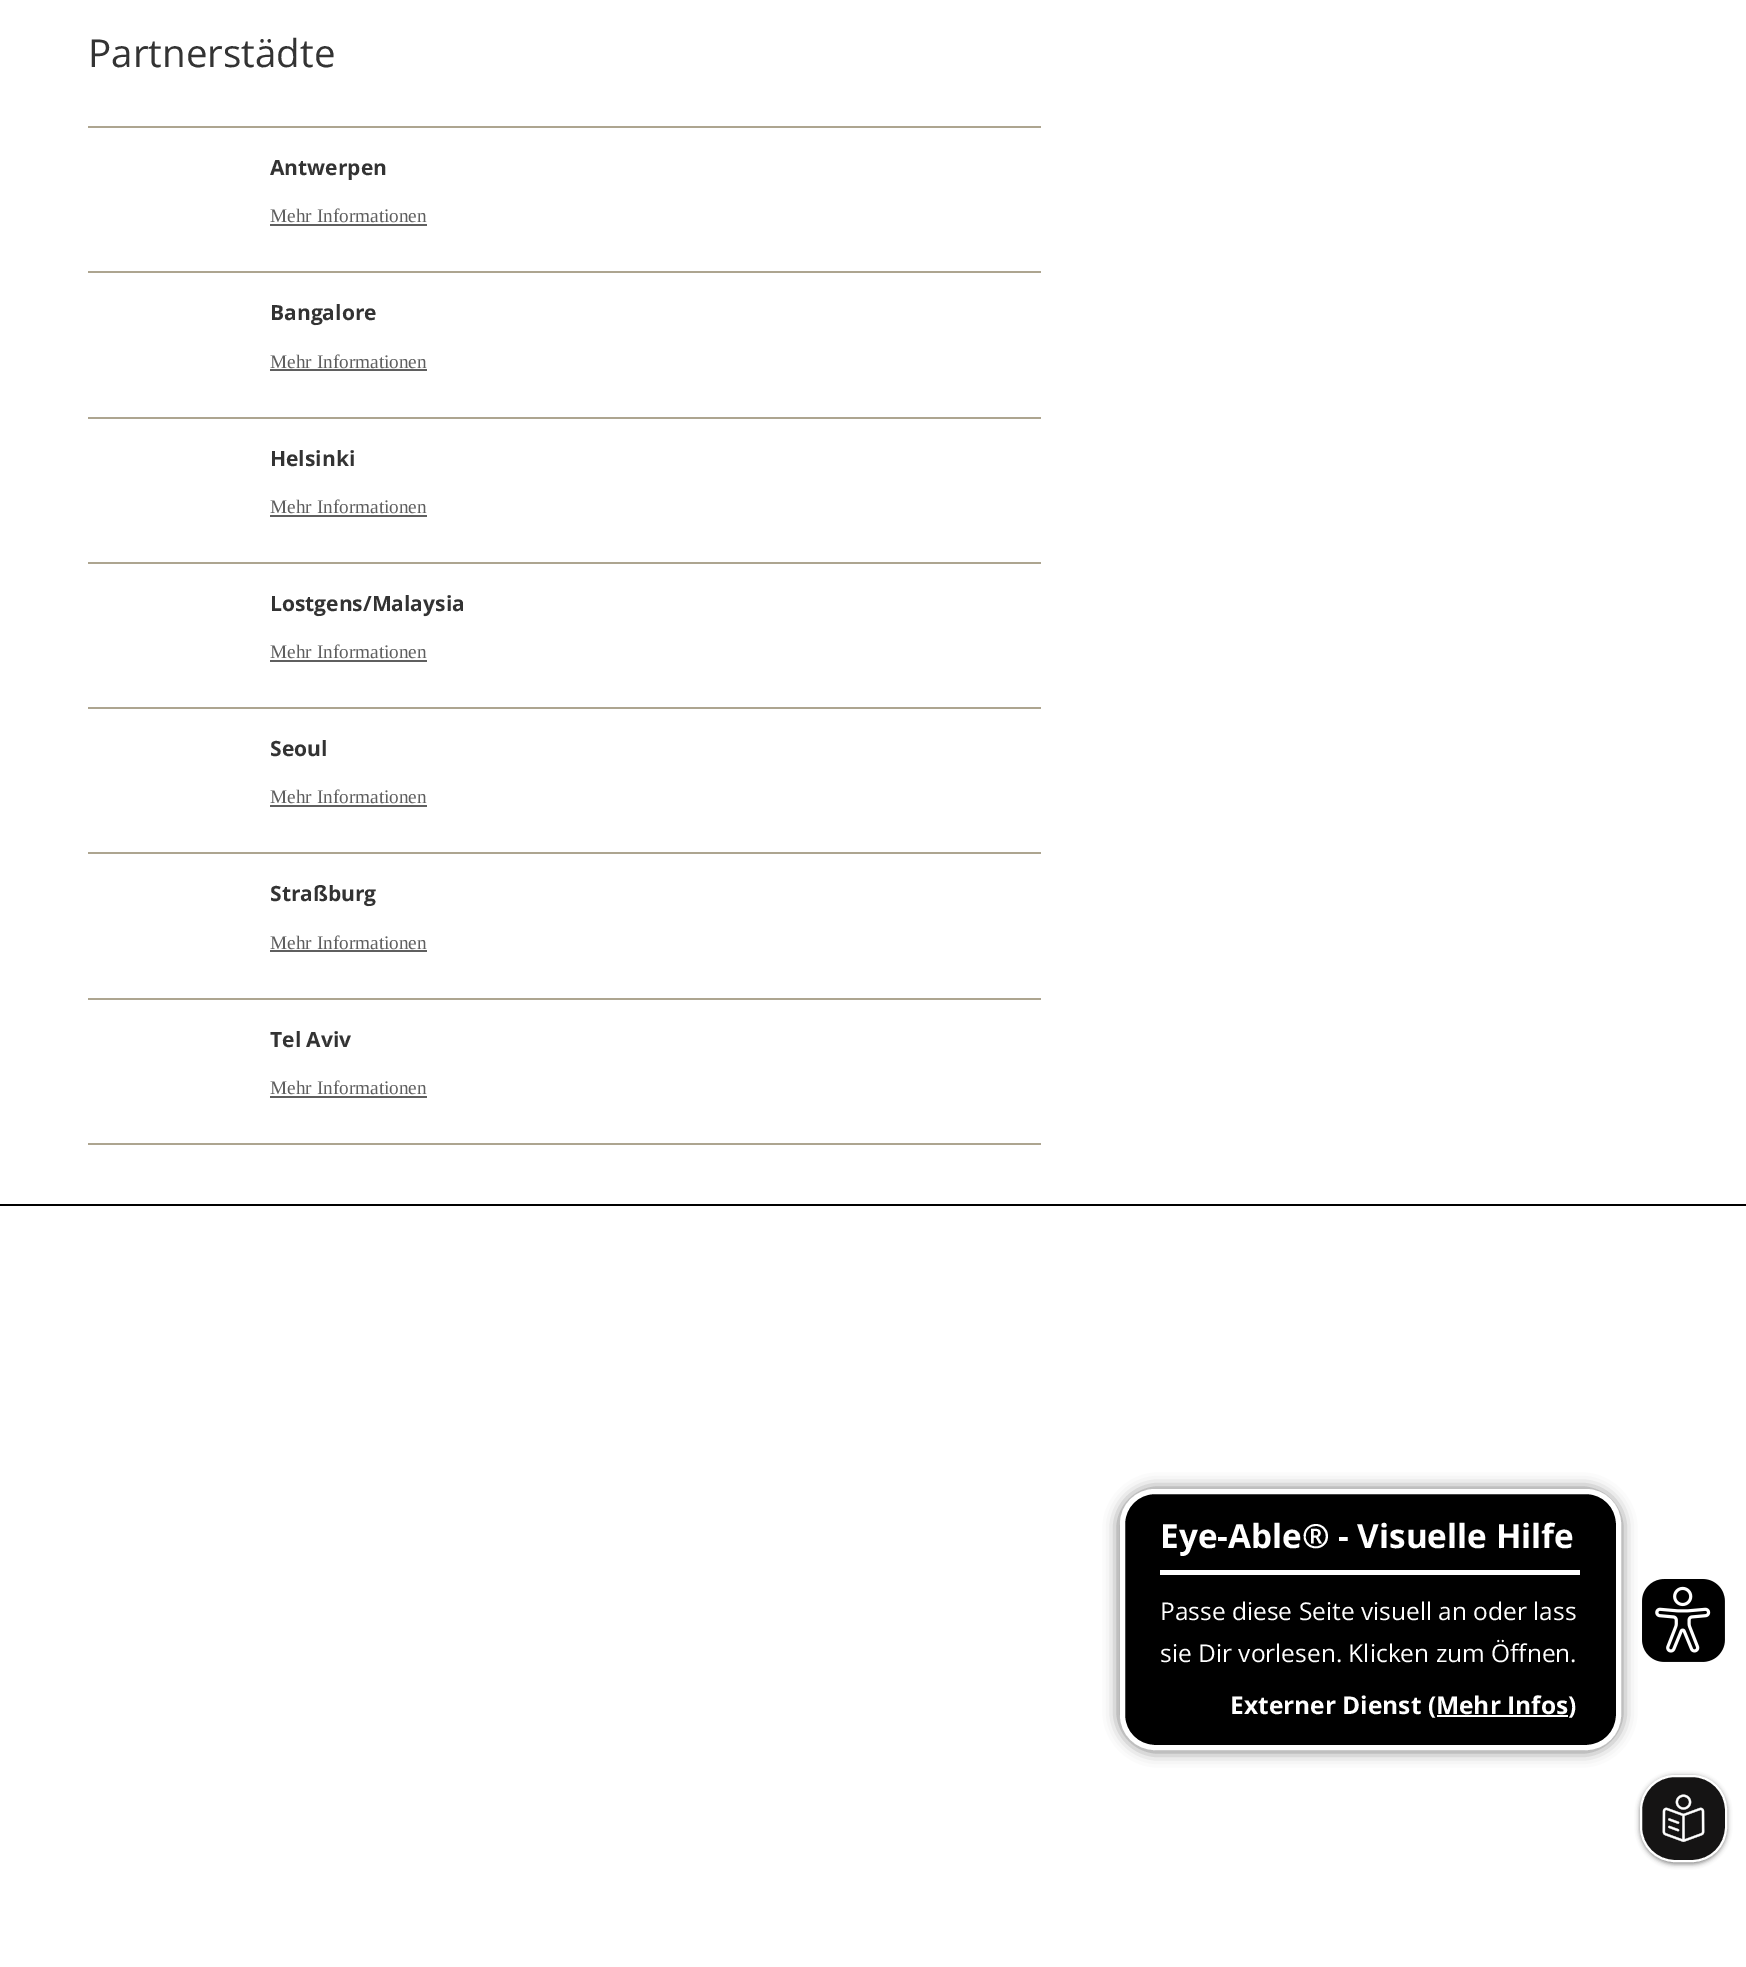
%!PS
<< /PageSize [1746 1967] /PageUsesTransparency true >> setpagedevice
/alpha { dup .setfillconstantalpha .setstrokeconstantalpha } def
/roundrect { 5 dict begin { /r /h /w /y /x } { exch def } forall
  x r add y moveto x w add y 2 copy h add r arct x w add y h add x 1 index r arct
  x y h add x y r arct x y 2 copy exch w add exch r arct closepath end } def
/shadow { 12 dict begin { /a /b /q /h /w /y /x } { exch def } forall gsave /was 0 def
  9 -2 -9 { dup b mul 4 div /e exch def 1 sub .425 mul 2.718 exch exp 1 add a .99 .min exch div /now exch def
    1 1 now sub 1 was sub div sub alpha /was now def
    w h .min e 2 mul add 0 gt { x e sub y e sub w e 2 mul add h e 2 mul add
      q e add b .6 mul add w h .min 2 div e add .min 0 .max roundrect fill } if } for grestore end } def
/picture { 5 dict begin { /h /w /y /x /name } { exch def } forall
  gsave x y translate w h scale
  w h 8 [w 0 0 h 0 0] name (r) file false 3 colorimage grestore end } def
0 .pushpdf14devicefilter
0 1967 translate 1 -1 scale
4 setmiterlimit
1 setgray
0 0 1746 1967 rectfill
0 setgray
0 1204 1746 2 rectfill
0.678 0.647 0.565 setrgbcolor
88 126 953 2 rectfill
/OpenSans-Regular [38.5 0 0 -38.5 0 0] selectfont
0.2 setgray
88 67 moveto (Partnerstädte) show
0.678 0.647 0.565 setrgbcolor
88 271 953 2 rectfill
/OpenSans-Bold [21 0 0 -21 0 0] selectfont
0.2 setgray
270 175 moveto (Antwerpen) show
/LiberationSerif-Regular [19.25 0 0 -19.25 0 0] selectfont
0.373 setgray
270 222 moveto (Mehr Informationen) show
270 224 157 2 rectfill
0.678 0.647 0.565 setrgbcolor
88 417 953 2 rectfill
/OpenSans-Bold [21 0 0 -21 0 0] selectfont
0.2 setgray
270 320 moveto (Bangalore) show
/LiberationSerif-Regular [19.25 0 0 -19.25 0 0] selectfont
0.373 setgray
270 368 moveto (Mehr Informationen) show
270 369 157 2 rectfill
0.678 0.647 0.565 setrgbcolor
88 562 953 2 rectfill
/OpenSans-Bold [21 0 0 -21 0 0] selectfont
0.2 setgray
270 466 moveto (Helsinki) show
/LiberationSerif-Regular [19.25 0 0 -19.25 0 0] selectfont
0.373 setgray
270 513 moveto (Mehr Informationen) show
270 515 157 2 rectfill
0.678 0.647 0.565 setrgbcolor
88 707 953 2 rectfill
/OpenSans-Bold [21 0 0 -21 0 0] selectfont
0.2 setgray
270 611 moveto (Lostgens/Malaysia) show
/LiberationSerif-Regular [19.25 0 0 -19.25 0 0] selectfont
0.373 setgray
270 658 moveto (Mehr Informationen) show
270 660 157 2 rectfill
0.678 0.647 0.565 setrgbcolor
88 852 953 2 rectfill
/OpenSans-Bold [21 0 0 -21 0 0] selectfont
0.2 setgray
270 756 moveto (Seoul) show
/LiberationSerif-Regular [19.25 0 0 -19.25 0 0] selectfont
0.373 setgray
270 803 moveto (Mehr Informationen) show
270 805 157 2 rectfill
0.678 0.647 0.565 setrgbcolor
88 998 953 2 rectfill
/OpenSans-Bold [21 0 0 -21 0 0] selectfont
0.2 setgray
270 901 moveto (Straßburg) show
/LiberationSerif-Regular [19.25 0 0 -19.25 0 0] selectfont
0.373 setgray
270 949 moveto (Mehr Informationen) show
270 950 157 2 rectfill
0.678 0.647 0.565 setrgbcolor
88 1143 953 2 rectfill
/OpenSans-Bold [21 0 0 -21 0 0] selectfont
0.2 setgray
270 1047 moveto (Tel Aviv) show
/LiberationSerif-Regular [19.25 0 0 -19.25 0 0] selectfont
0.373 setgray
270 1094 moveto (Mehr Informationen) show
270 1096 157 2 rectfill
0 setgray
1118 1488 504 264 37 7 0.5 shadow
1122.5 1491.5 496 256 32.5 roundrect gsave fill grestore
1 setgray
5 setlinewidth
stroke
1160 1570 420 5 rectfill
/OpenSans-Bold [33.25 0 0 -33.25 0 0] selectfont
1160 1548 moveto (Eye-Able® - Visuelle Hilfe) show
/OpenSans-Regular [24.5 0 0 -24.5 0 0] selectfont
1160 1620 moveto (Passe diese Seite visuell an oder lass) show
1160 1662 moveto (sie Dir vorlesen. Klicken zum Öffnen.) show
/OpenSans-Bold [24.5 0 0 -24.5 0 0] selectfont
1230 1714 moveto (Externer Dienst \(Mehr Infos\)) show
1437 1715 131 2 rectfill
(img1.rgb) 1642 1579 83 83 picture
0.518 setgray
1640 1776 87 88 35 2.5 1 shadow
0.082 0.078 0.078 setrgbcolor
1641 1776 85 85 34 roundrect gsave fill grestore
1 setgray
2 setlinewidth
stroke
(img2.rgb) 1662 1794 43 48 picture
.poppdf14devicefilter showpage
